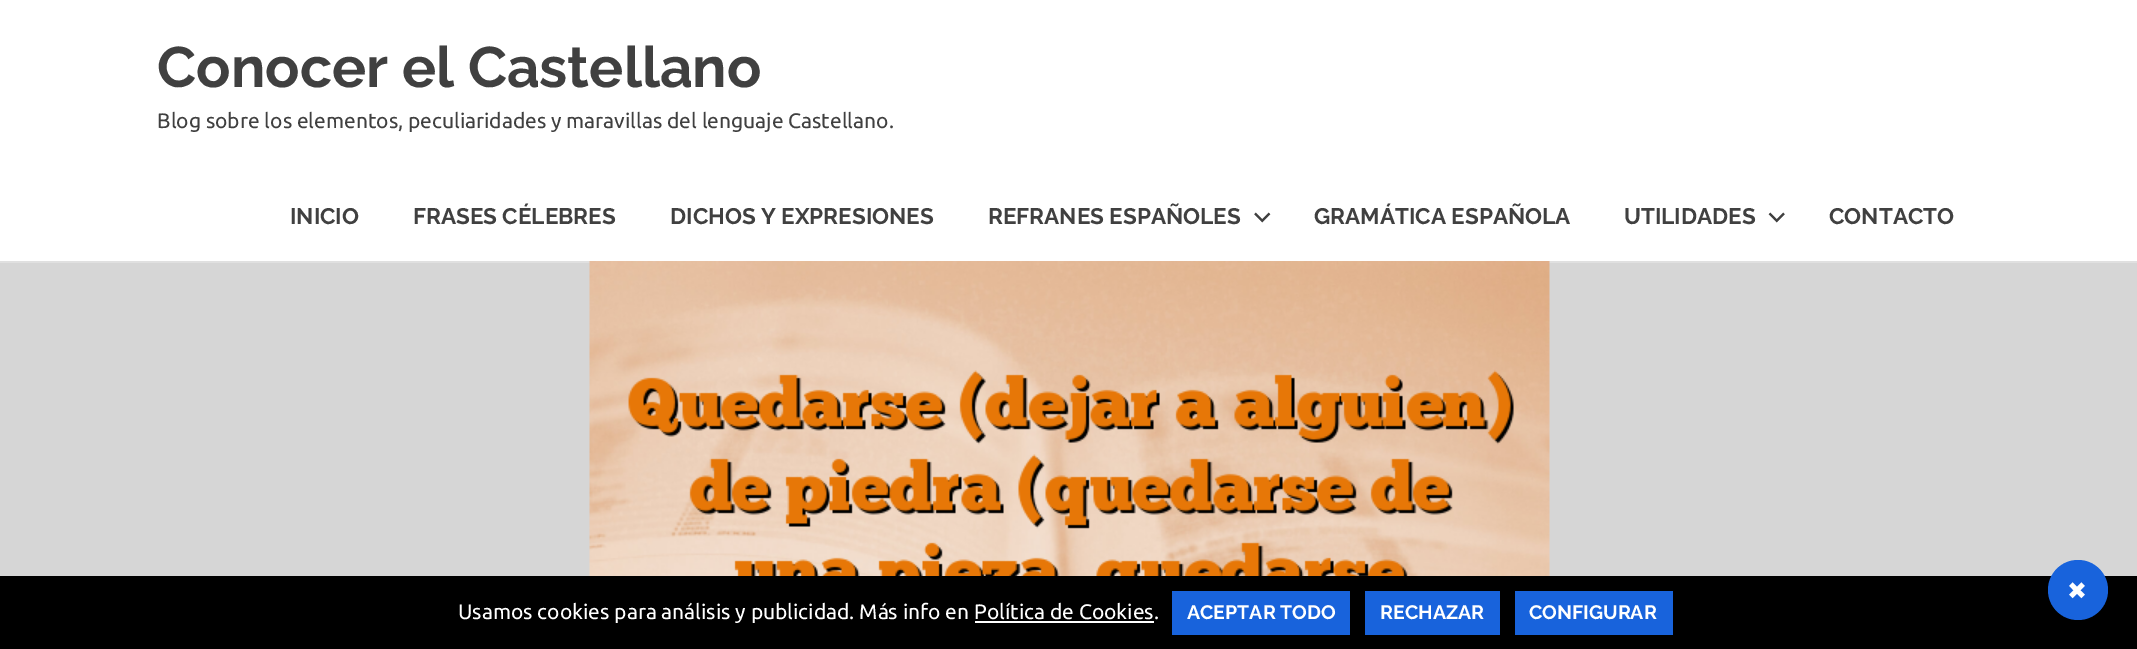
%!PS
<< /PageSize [2137 649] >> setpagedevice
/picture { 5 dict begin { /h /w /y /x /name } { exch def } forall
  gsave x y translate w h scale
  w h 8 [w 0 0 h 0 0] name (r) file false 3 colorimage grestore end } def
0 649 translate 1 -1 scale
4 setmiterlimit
0.839 setgray
0 0 2137 649 rectfill
1 setgray
0 0 2137 261 rectfill
0.878 setgray
0 261 2137 2 rectfill
/Raleway-Thin [57 0 0 -57 0 0] selectfont
0.251 setgray
157 87 moveto (Conocer el Castellano) show
/Ubuntu-Regular [21 0 0 -21 0 0] selectfont
157 128 moveto (Blog sobre los elementos, peculiaridades y maravillas del lenguaje Castellano.) show
/Raleway-Thin [22.5 0 0 -22.5 0 0] selectfont
290 224 moveto (INICIO) show
413 224 moveto (FRASES CÉLEBRES) show
670 224 moveto (DICHOS Y EXPRESIONES) show
988 224 moveto (REFRANES ESPAÑOLES) show
(img1.rgb) 1254 212 17 11 picture
1314 224 moveto (GRAMÁTICA ESPAÑOLA) show
1624 224 moveto (UTILIDADES) show
(img2.rgb) 1768 212 17 11 picture
1829 224 moveto (CONTACTO) show
(img3.rgb) 589 261 961 315 picture
0 setgray
0 576 2137 73 rectfill
0.094 0.388 0.863 setrgbcolor
newpath 2078 590 30 0 360 arc closepath fill
/DejaVuSans-Regular [24 0 0 -24 0 0] selectfont
1 setgray
2067 599 moveto (✖) show
/Ubuntu-Regular [21 0 0 -21 0 0] selectfont
458 619 moveto (Usamos cookies para análisis y publicidad. Más info en Política de Cookies.) show
0.094 0.388 0.863 setrgbcolor
1172 591 178 44 rectfill
/Raleway-Thin [19.5 0 0 -19.5 0 0] selectfont
1 setgray
1187 619 moveto (ACEPTAR TODO) show
0.094 0.388 0.863 setrgbcolor
1365 591 135 44 rectfill
1 setgray
1380 619 moveto (RECHAZAR) show
0.094 0.388 0.863 setrgbcolor
1515 591 158 44 rectfill
1 setgray
1529 619 moveto (CONFIGURAR) show
975 621 179 2 rectfill
showpage
